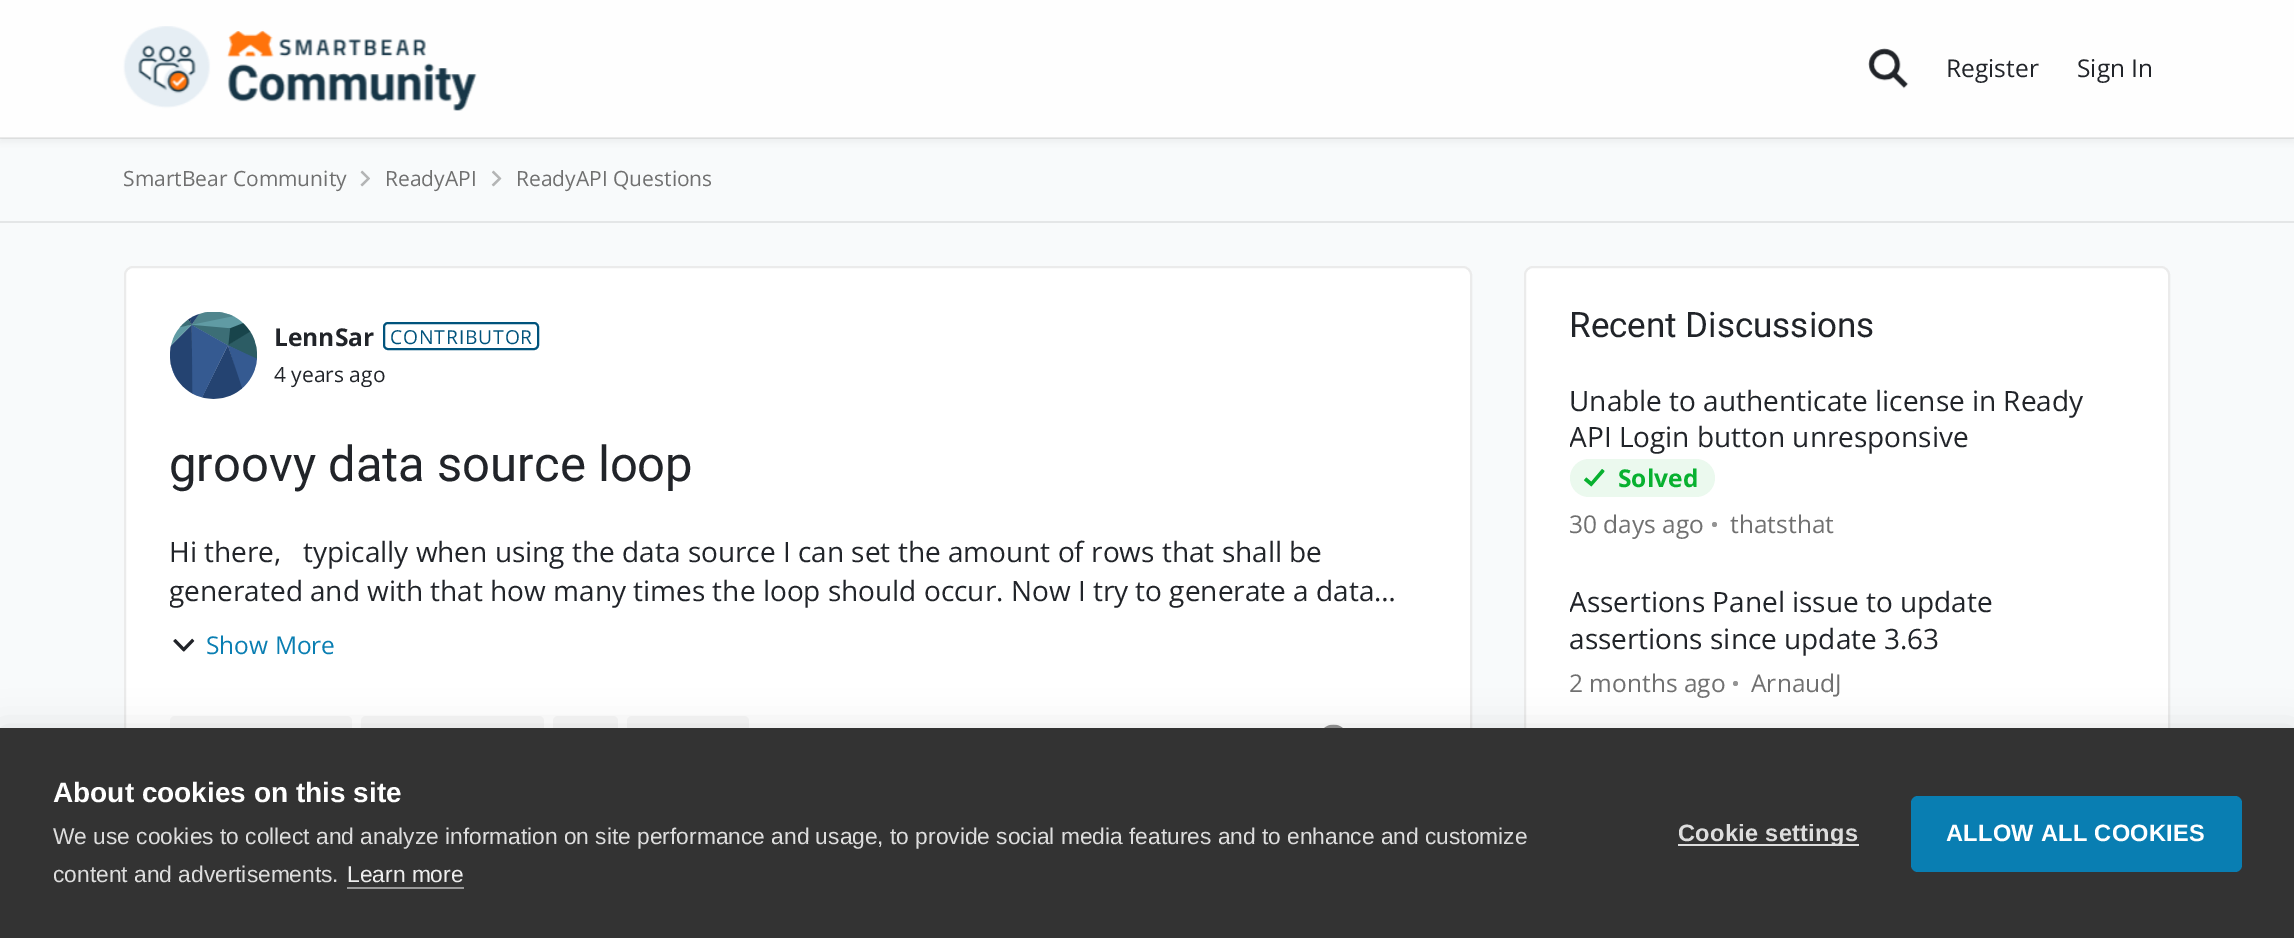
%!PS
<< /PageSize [2294 938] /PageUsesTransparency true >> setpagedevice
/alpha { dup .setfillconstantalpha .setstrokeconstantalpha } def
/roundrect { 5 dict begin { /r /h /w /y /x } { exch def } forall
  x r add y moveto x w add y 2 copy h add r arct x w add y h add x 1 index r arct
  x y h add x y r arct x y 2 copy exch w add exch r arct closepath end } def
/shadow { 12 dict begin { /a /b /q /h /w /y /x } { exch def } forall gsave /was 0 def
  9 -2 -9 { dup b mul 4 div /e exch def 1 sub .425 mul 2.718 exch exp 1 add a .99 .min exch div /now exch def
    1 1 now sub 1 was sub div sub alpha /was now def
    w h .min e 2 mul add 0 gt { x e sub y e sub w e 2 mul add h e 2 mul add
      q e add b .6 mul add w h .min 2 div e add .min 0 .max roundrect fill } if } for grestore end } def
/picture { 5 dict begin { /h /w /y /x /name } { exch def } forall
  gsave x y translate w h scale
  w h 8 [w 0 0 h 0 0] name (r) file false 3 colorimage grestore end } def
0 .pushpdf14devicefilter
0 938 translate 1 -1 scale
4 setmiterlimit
0.973 0.98 0.984 setrgbcolor
0 0 2294 938 rectfill
0.2 setgray
0 4 2294 138 0 3.5 0.06 shadow
0.996 setgray
0 0 2294 138 rectfill
0.08 alpha
0 setgray
0 137 2294 2 rectfill
1 alpha
(img1.rgb) 123 26 354 85 picture
(img2.rgb) 1868 48 41 41 picture
/OpenSans-Regular [24.5 0 0 -24.5 0 0] selectfont
0.129 0.141 0.161 setrgbcolor
1946 77 moveto (Register) show
2077 77 moveto (Sign In) show
0.894 0.902 0.906 setrgbcolor
0 221 2294 2 rectfill
/OpenSans-Regular [21 0 0 -21 0 0] selectfont
0.439 setgray
123 186 moveto (SmartBear Community) show
(img3.rgb) 360 170 10 17 picture
385 186 moveto (ReadyAPI) show
(img4.rgb) 491 170 11 17 picture
516 186 moveto (ReadyAPI Questions) show
1 setgray
124 266 1348 550 9 roundrect fill
0.08 alpha
0 setgray
2 setlinewidth
125 267 1346 548 8 roundrect stroke
1 alpha
0.851 setgray
newpath 213.5 355.5 43.5 0 360 arc closepath fill
(img5.rgb) 170 312 87 87 picture
/OpenSans-Bold [24.5 0 0 -24.5 0 0] selectfont
0.129 0.141 0.161 setrgbcolor
274 346 moveto (LennSar) show
0 0.325 0.486 setrgbcolor
384 323 154 26 4 roundrect stroke
/OpenSans-Regular [19.25 0 0 -19.25 0 0] selectfont
390 344 moveto 0.9 0 (CONTRIBUTOR) ashow
/OpenSans-Regular [21 0 0 -21 0 0] selectfont
0.129 0.141 0.161 setrgbcolor
274 382 moveto (4 years ago) show
/Roboto-Regular [49 0 0 -49 0 0] selectfont
169 481 moveto (groovy data source loop) show
/OpenSans-Regular [28 0 0 -28 0 0] selectfont
169 562 moveto (Hi there,) show
303 562 moveto (typically when using the data source I can set the amount of rows that shall be) show
gsave
170 532 1256 79 rectclip
169 601 moveto (generated and with that how many times the loop should occur. Now I try to generate a data…) show
grestore
(img6.rgb) 173 638 22 14 picture
/OpenSans-Regular [24.5 0 0 -24.5 0 0] selectfont
0.035 0.494 0.698 setrgbcolor
206 654 moveto (Show More) show
0.969 setgray
170 716 182 38 5 roundrect fill
361 716 183 38 5 roundrect fill
553 716 65 38 5 roundrect fill
627 716 122 38 5 roundrect fill
(img7.rgb) 1324 724 19 4 picture
1 setgray
1524 266 646 663 9 roundrect fill
0.08 alpha
0 setgray
1525 267 644 661 8 roundrect stroke
/Roboto-Regular [35 0 0 -35 0 0] selectfont
1 alpha
0.129 0.141 0.161 setrgbcolor
1569 337 moveto (Recent Discussions) show
/OpenSans-Regular [28 0 0 -28 0 0] selectfont
1569 411 moveto (Unable to authenticate license in Ready) show
gsave
1570 383 555 72 rectclip
1569 447 moveto (API Login button unresponsive) show
grestore
0.922 0.976 0.933 setrgbcolor
1570 459 145 38 19 roundrect fill
(img8.rgb) 1584 469 21 18 picture
/OpenSans-Bold [24.5 0 0 -24.5 0 0] selectfont
0.031 0.694 0.188 setrgbcolor
1618 487 moveto (Solved) show
/OpenSans-Regular [24.5 0 0 -24.5 0 0] selectfont
0.439 setgray
1569 533 moveto (30 days ago) show
0.58 setgray
newpath 1714.5 524.5 2.5 0 360 arc closepath fill
0.439 setgray
1730 533 moveto (thatsthat) show
gsave
1570 585 555 73 rectclip
/OpenSans-Regular [28 0 0 -28 0 0] selectfont
0.129 0.141 0.161 setrgbcolor
1569 612 moveto (Assertions Panel issue to update) show
grestore
/OpenSans-Regular [28 0 0 -28 0 0] selectfont
0.129 0.141 0.161 setrgbcolor
1569 649 moveto (assertions since update 3.63) show
/OpenSans-Regular [24.5 0 0 -24.5 0 0] selectfont
0.439 setgray
1569 692 moveto (2 months ago) show
0.58 setgray
newpath 1735.5 683.5 2.5 0 360 arc closepath fill
0.439 setgray
1751 692 moveto (ArnaudJ) show
0 setgray
0 728 2294 210 0 17.5 0.1 shadow
0.2 setgray
0 728 2294 210 rectfill
/LiberationSans-Bold [28 0 0 -28 0 0] selectfont
1 setgray
53 802 moveto (About cookies on this site) show
/LiberationSans-Regular [22.75 0 0 -22.75 0 0] selectfont
0.867 setgray
53 844 moveto (We use cookies to collect and analyze information on site performance and usage, to provide social media features and to enhance and customize) show
53 882 moveto (content and advertisements.) show
0.933 setgray
347 882 moveto (Learn more) show
0.6 setgray
347 887 117 2 rectfill
0.867 setgray
1678 844 181 2 rectfill
/LiberationSans-Bold [23.6 0 0 -23.6 0 0] selectfont
1678 841 moveto 0.3 0 (Cookie settings) ashow
0.035 0.494 0.698 setrgbcolor
1911 796 331 76 7 roundrect fill
1 setgray
1946 841 moveto 0.3 0 (ALLOW ALL COOKIES) ashow
.poppdf14devicefilter showpage
